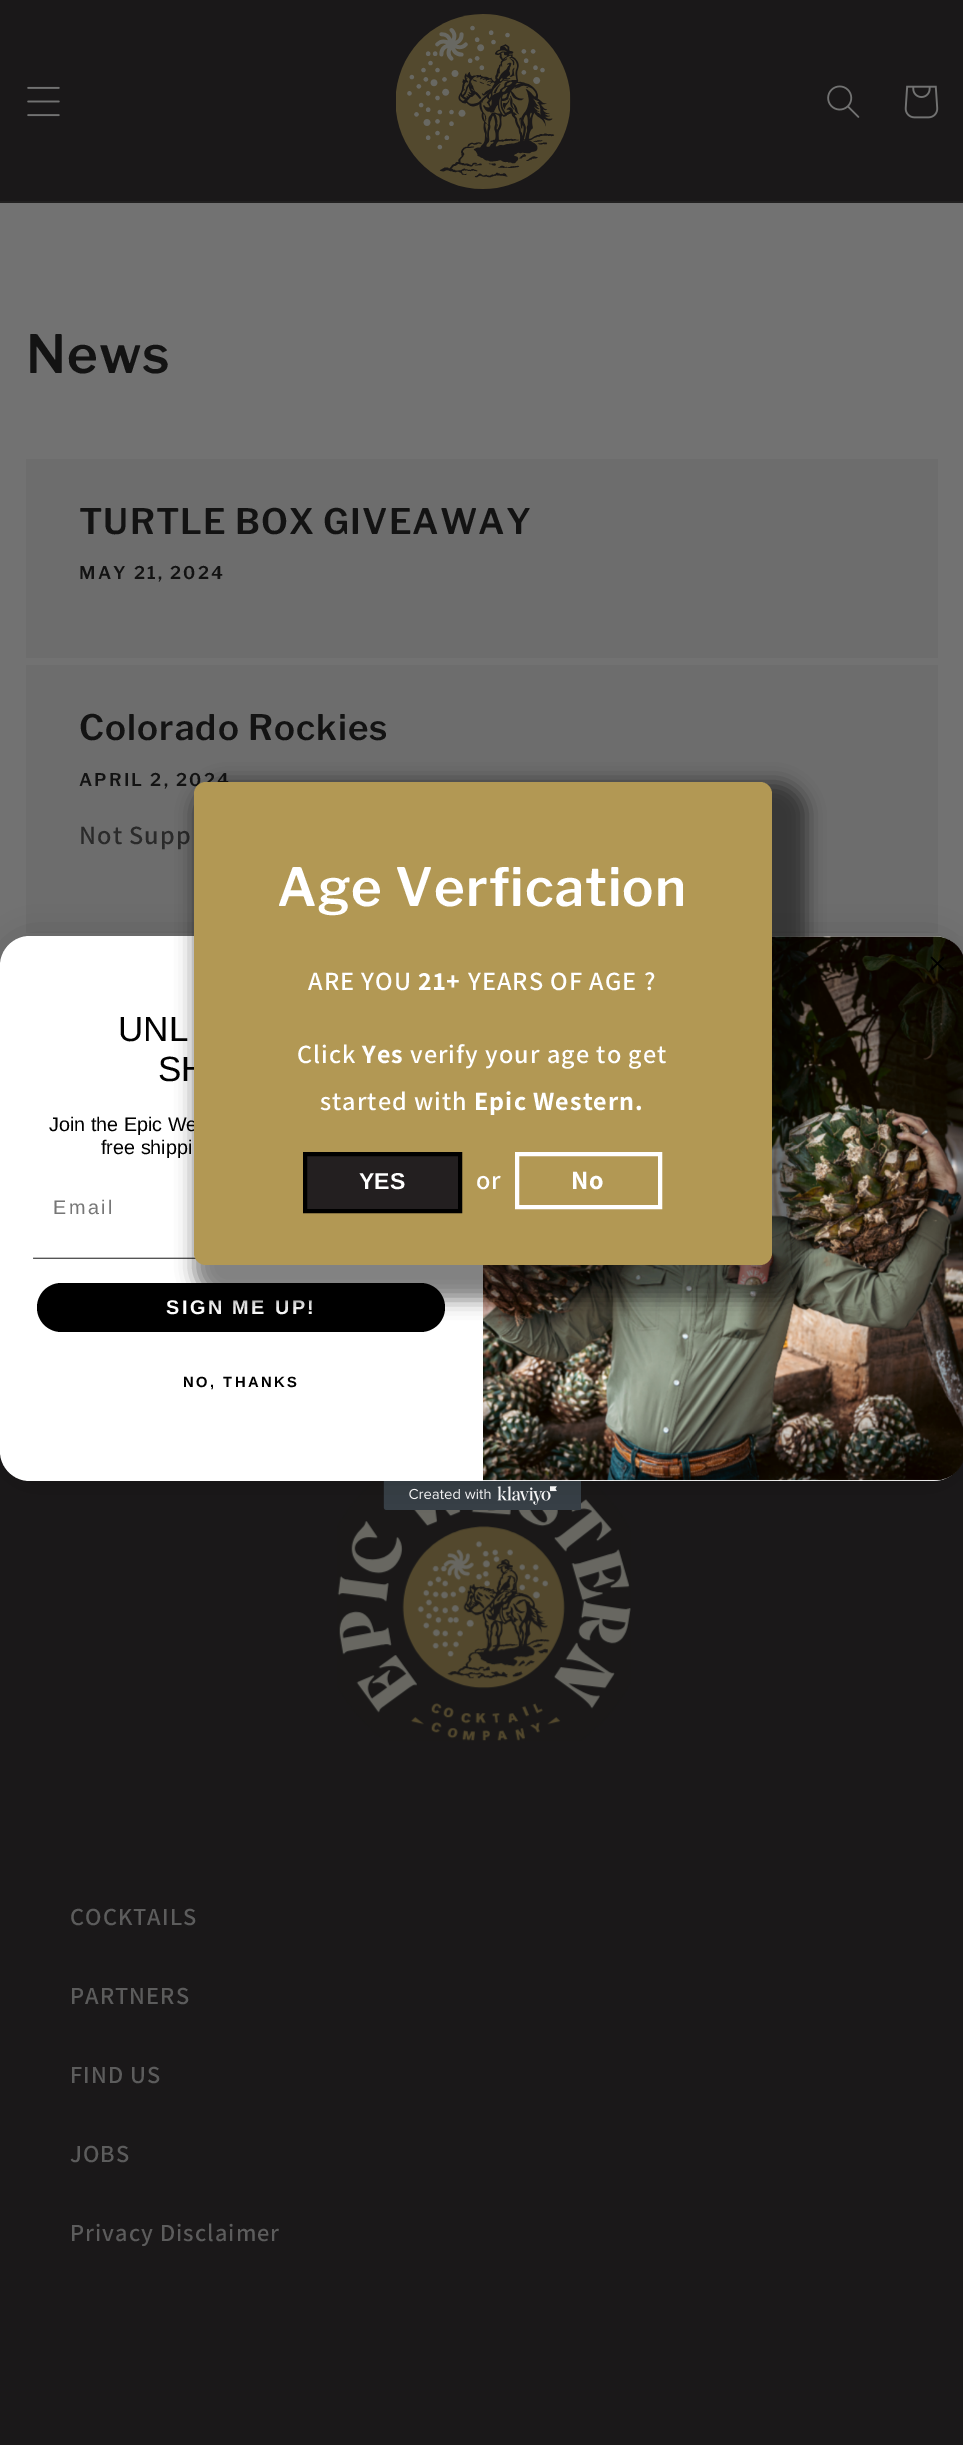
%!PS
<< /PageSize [963 2445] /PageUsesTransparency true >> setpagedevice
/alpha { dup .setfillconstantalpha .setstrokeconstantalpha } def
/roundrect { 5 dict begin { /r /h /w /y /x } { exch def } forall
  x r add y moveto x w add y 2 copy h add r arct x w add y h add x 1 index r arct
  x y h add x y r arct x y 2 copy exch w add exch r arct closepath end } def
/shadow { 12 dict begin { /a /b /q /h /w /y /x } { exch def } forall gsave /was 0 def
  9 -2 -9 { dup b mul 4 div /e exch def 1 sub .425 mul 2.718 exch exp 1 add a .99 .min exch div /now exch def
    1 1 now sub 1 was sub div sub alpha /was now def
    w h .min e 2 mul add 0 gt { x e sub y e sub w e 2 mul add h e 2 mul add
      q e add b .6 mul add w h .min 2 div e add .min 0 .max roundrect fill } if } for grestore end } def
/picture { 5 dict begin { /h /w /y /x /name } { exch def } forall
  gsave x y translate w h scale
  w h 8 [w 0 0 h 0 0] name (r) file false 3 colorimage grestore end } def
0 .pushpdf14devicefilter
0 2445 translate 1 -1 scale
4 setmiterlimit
0.447 setgray
0 0 963 2445 rectfill
0.102 0.094 0.098 setrgbcolor
0 0 963 201 rectfill
0.129 0.125 0.125 setrgbcolor
0 201 963 2 rectfill
(img1.rgb) 27 86 33 31 picture
(img2.rgb) 396 14 175 175 picture
(img3.rgb) 827 85 33 33 picture
(img4.rgb) 904 85 35 34 picture
/LibreFranklin-SemiBold [52.5 0 0 -52.5 0 0] selectfont
0.075 setgray
26 373 moveto 1.05 0 (News) ashow
0.427 setgray
26 459 912 199 rectfill
/LibreFranklin-SemiBold [35 0 0 -35 0 0] selectfont
0.075 setgray
79 534 moveto 1.05 0 (TURTLE BOX GIVEAWAY) ashow
/LibreFranklin-SemiBold [17.5 0 0 -17.5 0 0] selectfont
79 579 moveto 2.25 0 (MAY 21, 2024) ashow
0.427 setgray
26 665 912 268 rectfill
/LibreFranklin-SemiBold [35 0 0 -35 0 0] selectfont
0.075 setgray
79 740 moveto 1.05 0 (Colorado Rockies) ashow
/LibreFranklin-SemiBold [17.5 0 0 -17.5 0 0] selectfont
79 786 moveto 2.25 0 (APRIL 2, 2024) ashow
/Assistant-SemiBold [26.25 0 0 -26.25 0 0] selectfont
0.165 setgray
79 844 moveto 1.05 0 (Not Supp) ashow
0.102 0.094 0.098 setrgbcolor
0 1451 963 994 rectfill
(img8.rgb) 337 1481 294 260 picture
(img7.rgb) 383 1481 198 29 picture
0 setgray
0 936 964 545 30 18.5 0.15 shadow
1 setgray
0 936 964 545 30 roundrect fill
(img6.rgb) 483 936 480 545 picture
0 setgray
1.5 setlinewidth
1 setlinecap
1 setlinejoin
newpath 931.5 957.5 moveto 943.5 969.5 lineto 931.5 969.5 moveto 943.5 957.5 lineto closepath stroke
/LiberationSans-Regular [35 0 0 -35 0 0] selectfont
118 1041 moveto (UNL) show
158 1081 moveto (SH) show
/LiberationSans-Regular [19.75 0 0 -19.75 0 0] selectfont
49 1131 moveto (Join the Epic We) show
101 1154 moveto (free shippi) show
0.463 setgray
53 1214 moveto 2.5 0 (Email) ashow
(img5.rgb) 33 1257 163 2 picture
0 setgray
37 1283 408 49 24.5 roundrect fill
/LiberationSans-Bold [19.75 0 0 -19.75 0 0] selectfont
1 setgray
166 1314 moveto 2.5 0 (SIGN ME UP!) ashow
/LiberationSans-Bold [14.75 0 0 -14.75 0 0] selectfont
0 setgray
183 1387 moveto 2.5 0 (NO, THANKS) ashow
194 782 613 518 30 9 0.5 shadow
0.698 0.596 0.329 setrgbcolor
194 782 578 483 12 roundrect fill
/LibreFranklin-SemiBold [52.5 0 0 -52.5 0 0] selectfont
1 setgray
277 906 moveto 1.05 0 (Age Verfication) ashow
/Assistant-SemiBold [26.25 0 0 -26.25 0 0] selectfont
308 990 moveto 1.05 0 (ARE YOU) ashow
/Assistant-Bold [26.25 0 0 -26.25 0 0] selectfont
418 990 moveto 1.05 0 (21+) ashow
/Assistant-SemiBold [26.25 0 0 -26.25 0 0] selectfont
468 990 moveto 1.05 0 (YEARS OF AGE ?) ashow
297 1063 moveto 1.05 0 (Click) ashow
/Assistant-Bold [26.25 0 0 -26.25 0 0] selectfont
362 1063 moveto 1.05 0 (Yes) ashow
/Assistant-SemiBold [26.25 0 0 -26.25 0 0] selectfont
410 1063 moveto 1.05 0 (verify your age to get) ashow
320 1110 moveto 1.05 0 (started with) ashow
/Assistant-Bold [26.25 0 0 -26.25 0 0] selectfont
474 1110 moveto 1.05 0 (Epic Western.) ashow
0.137 0.122 0.125 setrgbcolor
newpath 305 1154 moveto 460 1154 lineto 460 1211 lineto 305 1211 lineto closepath gsave fill grestore
0 setgray
4 setlinewidth
0 setlinecap
0 setlinejoin
stroke
/LiberationSans-Bold [23 0 0 -23 0 0] selectfont
1 setgray
359 1189 moveto (YES) show
/Assistant-SemiBold [26.25 0 0 -26.25 0 0] selectfont
476 1189 moveto 1.05 0 (or) ashow
517 1154 143 53 rectstroke
/Assistant-Bold [26.25 0 0 -26.25 0 0] selectfont
571 1189 moveto 1.05 0 (No) ashow
/Assistant-SemiBold [24.5 0 0 -24.5 0 0] selectfont
0.361 setgray
70 1925 moveto 1.05 0 (COCKTAILS) ashow
70 2004 moveto 1.05 0 (PARTNERS) ashow
70 2083 moveto 1.05 0 (FIND US) ashow
70 2162 moveto 1.05 0 (JOBS) ashow
70 2241 moveto 1.05 0 (Privacy Disclaimer) ashow
.poppdf14devicefilter showpage
